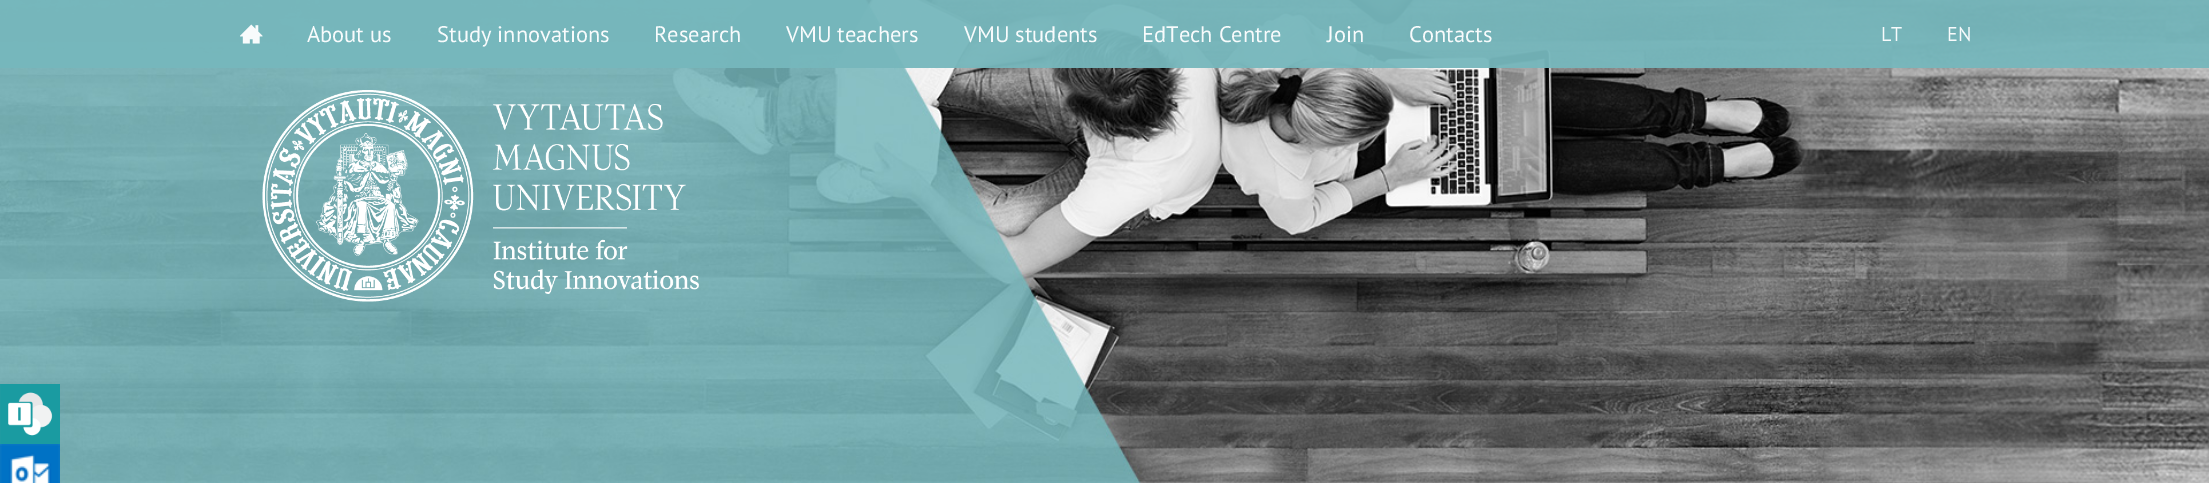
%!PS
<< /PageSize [2209 483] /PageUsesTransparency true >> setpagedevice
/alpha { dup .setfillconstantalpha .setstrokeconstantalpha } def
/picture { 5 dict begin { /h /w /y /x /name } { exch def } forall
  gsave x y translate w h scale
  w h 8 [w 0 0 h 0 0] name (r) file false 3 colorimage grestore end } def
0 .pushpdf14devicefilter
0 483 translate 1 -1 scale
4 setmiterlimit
1 setgray
0 0 2209 483 rectfill
(img1.rgb) 0 0 2209 483 picture
0.95 alpha
0.463 0.718 0.737 setrgbcolor
0 0 2209 68 rectfill
1 alpha
(img2.rgb) 240 24 23 20 picture
/PTSans-Regular [22.5 0 0 -22.5 0 0] selectfont
0.973 0.984 0.988 setrgbcolor
307 42 moveto (About us) show
437 42 moveto (Study innovations) show
654 42 moveto (Research) show
786 42 moveto (VMU teachers) show
964 42 moveto (VMU students) show
1142 42 moveto (EdTech Centre) show
1327 42 moveto (Join) show
1409 42 moveto (Contacts) show
/PTSans-Regular [20 0 0 -20 0 0] selectfont
1881 41 moveto (LT) show
1947 41 moveto (EN) show
(img3.rgb) 262 90 437 212 picture
(img4.rgb) 0 384 60 60 picture
(img5.rgb) 0 444 60 39 picture
.poppdf14devicefilter showpage
